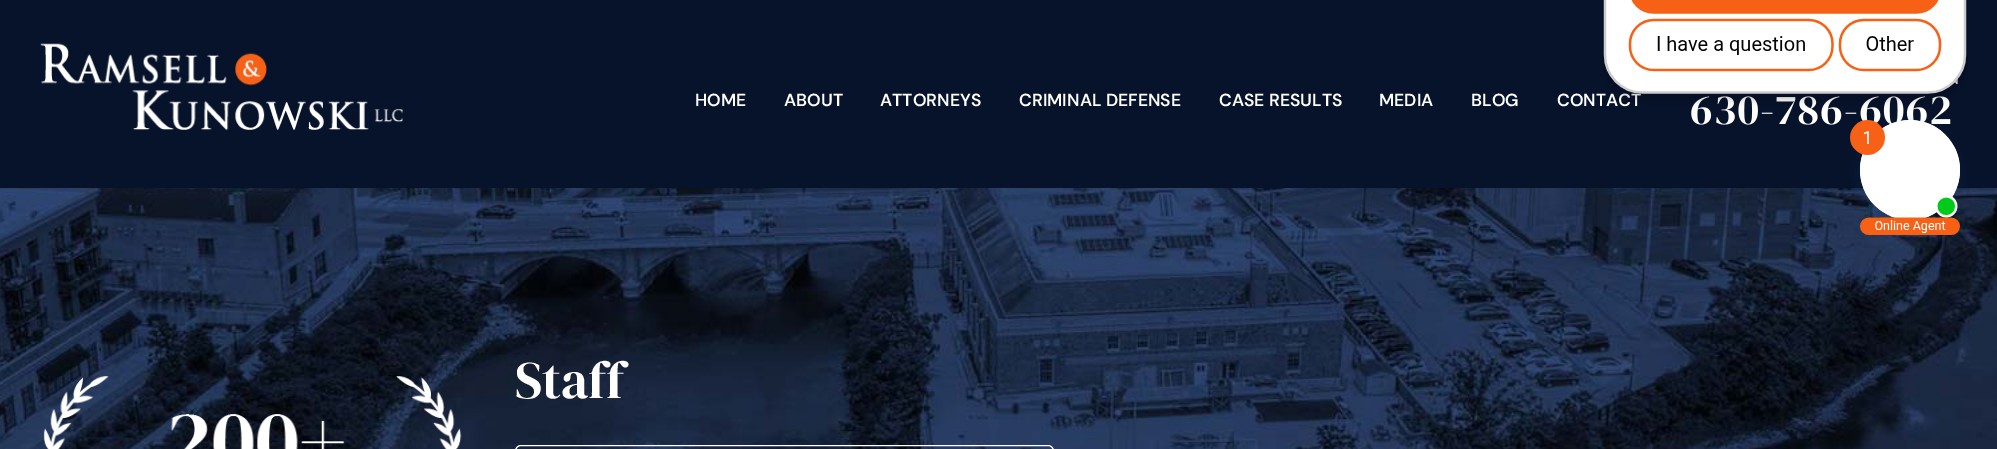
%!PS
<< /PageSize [1997 449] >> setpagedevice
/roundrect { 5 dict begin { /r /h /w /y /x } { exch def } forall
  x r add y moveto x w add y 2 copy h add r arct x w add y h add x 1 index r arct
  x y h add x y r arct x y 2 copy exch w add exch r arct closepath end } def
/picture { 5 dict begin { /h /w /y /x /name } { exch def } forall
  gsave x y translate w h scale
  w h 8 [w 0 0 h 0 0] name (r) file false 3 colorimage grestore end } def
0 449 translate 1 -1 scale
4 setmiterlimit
1 setgray
0 0 1997 449 rectfill
0.027 0.075 0.169 setrgbcolor
0 0 1997 188 rectfill
/DMSans-SemiBold [17.5 0 0 -17.5 0 0] selectfont
1 setgray
1557 106 moveto (CONTACT) show
/DMSerifDisplay-Bold [42.5 0 0 -42.5 0 0] selectfont
1690 124 moveto 1.25 0 (630-786-6062) ashow
(img3.rgb) 0 188 1997 261 picture
(img1.rgb) 1602 0 366 235 picture
(img2.rgb) 40 43 363 87 picture
/DMSans-SemiBold [17.5 0 0 -17.5 0 0] selectfont
695 106 moveto (HOME) show
784 106 moveto (ABOUT) show
880 106 moveto (ATTORNEYS) show
1019 106 moveto (CRIMINAL DEFENSE) show
1219 106 moveto (CASE RESULTS) show
1379 106 moveto (MEDIA) show
1471 106 moveto (BLOG) show
(img4.rgb) 43 376 419 73 picture
/DMSerifDisplay-Regular [52.5 0 0 -52.5 0 0] selectfont
515 398 moveto (Staff) show
515.5 445.5 538 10 5.5 roundrect stroke
showpage
